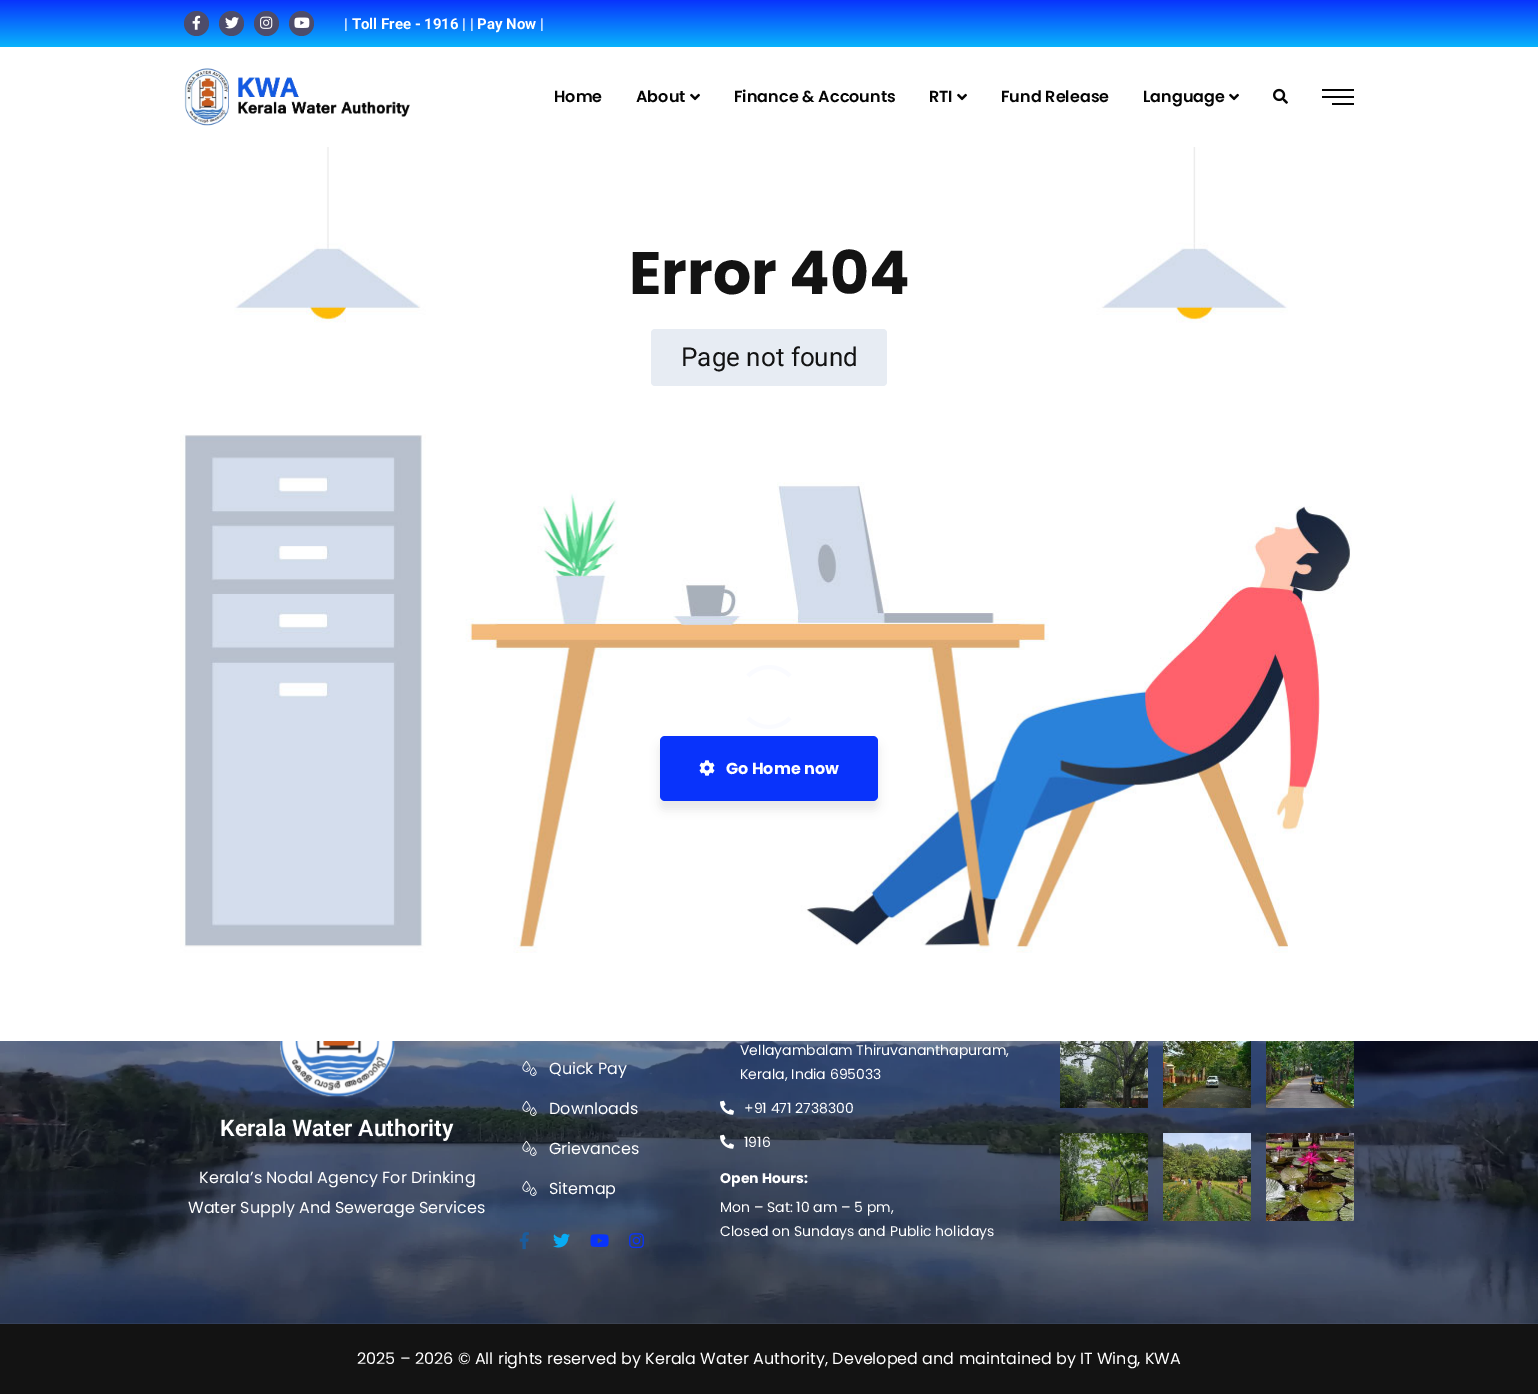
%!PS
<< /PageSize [1538 1394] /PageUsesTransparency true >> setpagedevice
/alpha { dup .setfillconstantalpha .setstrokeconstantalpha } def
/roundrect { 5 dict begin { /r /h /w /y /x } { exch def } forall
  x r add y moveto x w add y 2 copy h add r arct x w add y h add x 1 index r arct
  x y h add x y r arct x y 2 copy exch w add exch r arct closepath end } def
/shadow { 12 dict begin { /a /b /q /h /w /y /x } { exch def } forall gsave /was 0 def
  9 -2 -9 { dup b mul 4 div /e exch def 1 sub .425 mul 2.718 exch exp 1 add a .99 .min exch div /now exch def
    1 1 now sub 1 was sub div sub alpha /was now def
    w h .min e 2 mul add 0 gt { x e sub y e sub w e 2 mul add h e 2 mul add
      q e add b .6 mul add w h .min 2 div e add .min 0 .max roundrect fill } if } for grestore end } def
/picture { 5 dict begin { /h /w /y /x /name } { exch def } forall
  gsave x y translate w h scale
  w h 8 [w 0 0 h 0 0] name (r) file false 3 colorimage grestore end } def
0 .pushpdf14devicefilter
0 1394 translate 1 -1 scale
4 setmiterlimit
1 setgray
0 0 1538 1394 rectfill
gsave newpath 0 0 moveto 1538 0 lineto 1538 47 lineto 0 47 lineto closepath clip newpath
<< /ShadingType 2 /ColorSpace /DeviceRGB /Coords [769 47 769 0] /Extend [true true] /Function << /FunctionType 2 /Domain [0 1] /C0 [0.035 0.702 0.984] /C1 [0.031 0.2 0.992] /N 1 >> >> shfill grestore
0.302 0.298 0.416 setrgbcolor
newpath 196.5 23.5 12.5 0 360 arc closepath fill
(img1.rgb) 192 15 9 15 picture
newpath 231.5 23.5 12.5 0 360 arc closepath fill
(img2.rgb) 225 17 14 12 picture
newpath 266.5 23.5 12.5 0 360 arc closepath fill
(img3.rgb) 260 16 13 13 picture
newpath 301.5 23.5 12.5 0 360 arc closepath fill
(img4.rgb) 294 17 16 11 picture
/Roboto-Bold [15 0 0 -15 0 0] selectfont
1 setgray
344 29 moveto (| Toll Free - 1916 | | Pay Now |) show
(img5.rgb) 184 68 226 58 picture
/Poppins-SemiBold [16 0 0 -16 0 0] selectfont
0.02 setgray
554 102 moveto (Home) show
636 102 moveto (About) show
(img6.rgb) 690 93 10 8 picture
734 102 moveto (Finance & Accounts) show
929 102 moveto (RTI) show
(img6.rgb) 957 93 10 8 picture
1001 102 moveto (Fund Release) show
1143 102 moveto (Language) show
(img6.rgb) 1229 93 10 8 picture
(img7.rgb) 1273 88 15 16 picture
1322 89 32 2 rectfill
1322 96 32 2 rectfill
1332 103 22 2 rectfill
(img8.rgb) 180 147 1172 806 picture
/Poppins-Bold [60 0 0 -60 0 0] selectfont
0.075 setgray
629 294 moveto (Error 404) show
0.906 0.925 0.953 setrgbcolor
651 329 236 57 4 roundrect fill
/Roboto-Regular [26 0 0 -26 0 0] selectfont
0.075 setgray
681 366 moveto (Page not found) show
0.067 setgray
660 744 218 65 5 5 0.1 shadow
0.035 0.2 0.984 setrgbcolor
660 736 218 65 5 roundrect fill
(img9.rgb) 699 760 16 16 picture
/Poppins-Bold [16 0 0 -16 0 0] selectfont
1 setgray
726 774 moveto (Go Home now) show
0.98 0.984 1 setrgbcolor
4 setlinewidth
newpath 748 676 moveto 759.5 664 778.5 664 790 676 curveto stroke
newpath 790 718 moveto 778.5 730 759.5 730 748 718 curveto stroke
(img10.rgb) 0 1041 1538 283 picture
(img11.rgb) 280 1041 116 56 picture
/Roboto-SemiBold [23 0 0 -23 0 0] selectfont
1 setgray
220 1136 moveto (Kerala Water Authority) show
/Poppins-Regular [16 0 0 -16 0 0] selectfont
199 1183 moveto (Kerala’s Nodal Agency For Drinking) show
188 1213 moveto (Water Supply And Sewerage Services) show
(img12.rgb) 522 1060 15 16 picture
549 1074 moveto (Quick Pay) show
(img13.rgb) 522 1100 15 16 picture
549 1114 moveto (Downloads) show
(img14.rgb) 522 1140 15 16 picture
549 1154 moveto (Grievances) show
(img15.rgb) 522 1180 15 16 picture
549 1194 moveto (Sitemap) show
(img16.rgb) 519 1232 10 18 picture
(img17.rgb) 553 1233 17 15 picture
(img18.rgb) 590 1234 19 13 picture
(img19.rgb) 629 1233 15 16 picture
/Poppins-Regular [14 0 0 -14 0 0] selectfont
740 1055 moveto (Vellayambalam Thiruvananthapuram,) show
740 1079 moveto (Kerala, India 695033) show
(img20.rgb) 720 1100 14 15 picture
744 1113 moveto (+91 471 2738300) show
(img21.rgb) 720 1134 14 15 picture
744 1147 moveto (1916) show
/Poppins-Bold [14 0 0 -14 0 0] selectfont
720 1183 moveto (Open Hours:) show
/Poppins-Regular [14 0 0 -14 0 0] selectfont
720 1212 moveto (Mon – Sat: 10 am – 5 pm,) show
720 1236 moveto (Closed on Sundays and Public holidays) show
(img22.rgb) 1060 1041 88 67 picture
(img23.rgb) 1163 1041 88 67 picture
(img24.rgb) 1266 1041 88 67 picture
(img25.rgb) 1060 1133 88 88 picture
(img26.rgb) 1163 1133 88 88 picture
(img27.rgb) 1266 1133 88 88 picture
0.075 setgray
0 1324 1538 70 rectfill
/Poppins-Regular [16 0 0 -16 0 0] selectfont
1 setgray
357 1364 moveto (2025 – 2026 © All rights reserved by Kerala Water Authority, Developed and maintained by IT Wing, KWA) show
.poppdf14devicefilter showpage
